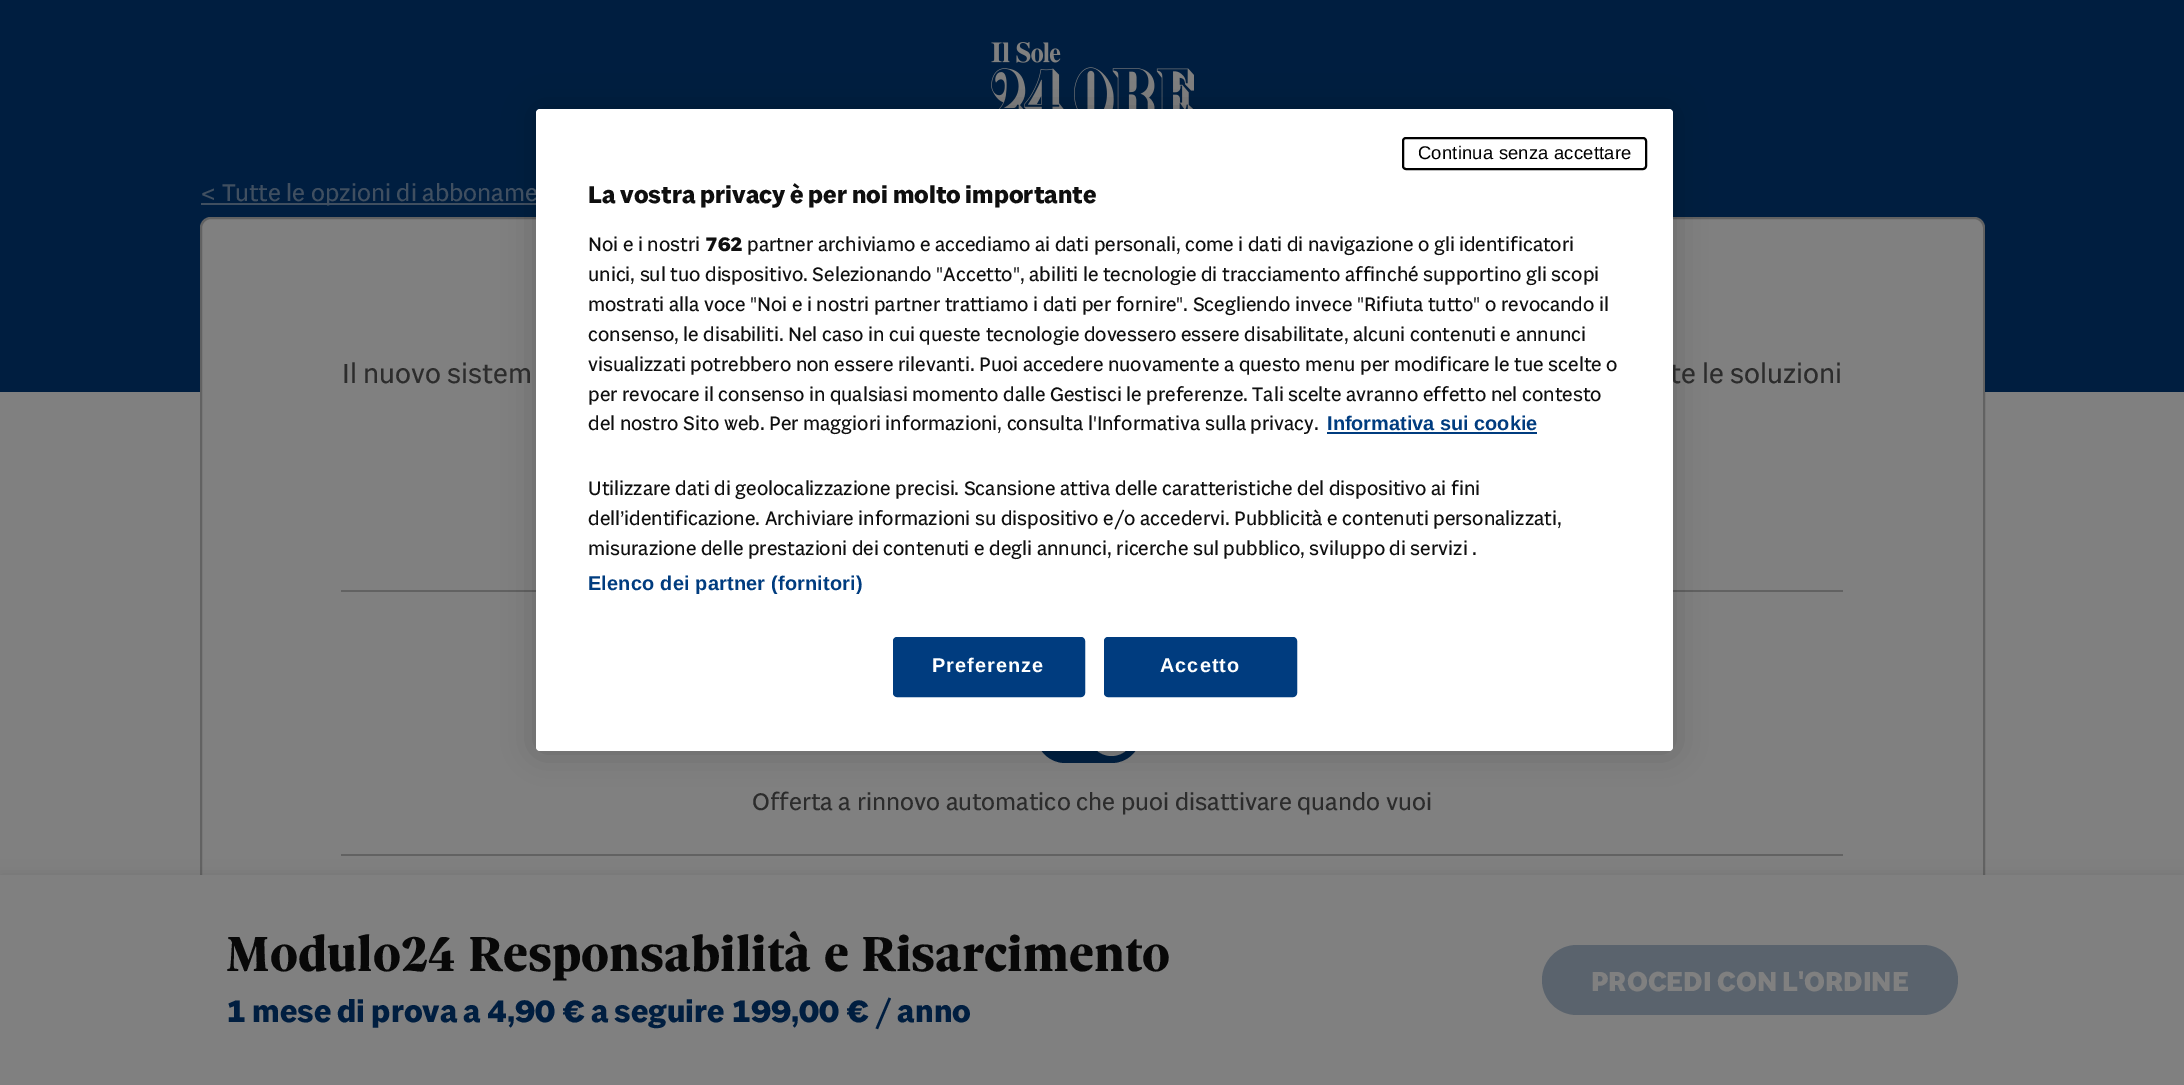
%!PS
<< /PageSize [2184 1085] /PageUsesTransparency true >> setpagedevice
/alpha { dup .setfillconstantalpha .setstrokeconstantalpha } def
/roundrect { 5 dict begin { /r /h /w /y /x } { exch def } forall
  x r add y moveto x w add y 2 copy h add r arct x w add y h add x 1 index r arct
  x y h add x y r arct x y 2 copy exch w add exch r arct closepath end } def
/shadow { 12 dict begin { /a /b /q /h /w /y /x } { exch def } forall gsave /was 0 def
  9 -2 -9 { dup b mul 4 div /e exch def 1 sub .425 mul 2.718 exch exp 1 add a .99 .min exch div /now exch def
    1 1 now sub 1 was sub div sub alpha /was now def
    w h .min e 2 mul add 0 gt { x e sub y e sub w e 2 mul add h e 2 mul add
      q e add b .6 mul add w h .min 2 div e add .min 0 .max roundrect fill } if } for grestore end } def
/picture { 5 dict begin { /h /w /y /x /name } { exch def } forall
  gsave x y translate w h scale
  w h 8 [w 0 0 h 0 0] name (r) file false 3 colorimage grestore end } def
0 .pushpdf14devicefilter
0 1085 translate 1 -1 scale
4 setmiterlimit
0.502 setgray
0 0 2184 1085 rectfill
0 0.118 0.251 setrgbcolor
0 0 2184 392 rectfill
(img1.rgb) 991 42 203 67 picture
0.502 setgray
200 217 1785 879 11 roundrect fill
0.25 alpha
0.031 setgray
2 setlinewidth
201 218 1783 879 10 roundrect stroke
1 alpha
0.251 0.31 0.376 setrgbcolor
201 203 335 2 rectfill
0.384 setgray
341 590 1502 2 rectfill
0 0.118 0.251 setrgbcolor
1036 704 105 59 29.5 roundrect fill
0.502 setgray
newpath 1111.5 733.5 22.5 0 360 arc closepath fill
0 setgray
536 109 1137 642 4 16 0.2 shadow
/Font-Regular [24.5 0 0 -24.5 0 0] selectfont
0.251 0.31 0.376 setrgbcolor
201 201 moveto (< Tutte le opzioni di abboname) show
/Font-Regular [28 0 0 -28 0 0] selectfont
0.173 setgray
1670 383 moveto (te le soluzioni) show
1 setgray
536 109 1137 642 4 roundrect fill
0 setgray
1403 138 243 31 3 roundrect stroke
/LiberationSans-Regular [18.4 0 0 -18.4 0 0] selectfont
1418 159 moveto 0.2 0 (Continua senza accettare) ashow
/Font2-Bold [24.5 0 0 -24.5 0 0] selectfont
0.059 setgray
588 203 moveto (La vostra privacy è per noi molto importante) show
/Font-Regular [19.92 0 0 -19.92 0 0] selectfont
588 251 moveto (Noi e i nostri) show
/Font2-Bold [19.92 0 0 -19.92 0 0] selectfont
705 251 moveto (762) show
/Font-Regular [19.92 0 0 -19.92 0 0] selectfont
747 251 moveto (partner archiviamo e accediamo ai dati personali, come i dati di navigazione o gli identificatori) show
588 281 moveto (unici, sul tuo dispositivo. Selezionando "Accetto", abiliti le tecnologie di tracciamento affinché supportino gli scopi) show
588 311 moveto (mostrati alla voce "Noi e i nostri partner trattiamo i dati per fornire". Scegliendo invece "Rifiuta tutto" o revocando il) show
588 341 moveto (consenso, le disabiliti. Nel caso in cui queste tecnologie dovessero essere disabilitate, alcuni contenuti e annunci) show
588 371 moveto (visualizzati potrebbero non essere rilevanti. Puoi accedere nuovamente a questo menu per modificare le tue scelte o) show
588 401 moveto (per revocare il consenso in qualsiasi momento dalle Gestisci le preferenze. Tali scelte avranno effetto nel contesto) show
588 430 moveto (del nostro Sito web. Per maggiori informazioni, consulta l'Informativa sulla privacy.) show
/LiberationSans-Bold [19.92 0 0 -19.92 0 0] selectfont
0 0.235 0.498 setrgbcolor
1327 430 moveto (Informativa sui cookie) show
1327 432 210 2 rectfill
/Font-Regular [19.92 0 0 -19.92 0 0] selectfont
0.059 setgray
588 495 moveto (Utilizzare dati di geolocalizzazione precisi. Scansione attiva delle caratteristiche del dispositivo ai fini) show
588 525 moveto (dell’identificazione. Archiviare informazioni su dispositivo e/o accedervi. Pubblicità e contenuti personalizzati,) show
588 555 moveto (misurazione delle prestazioni dei contenuti e degli annunci, ricerche sul pubblico, sviluppo di servizi .) show
/LiberationSans-Bold [19.92 0 0 -19.92 0 0] selectfont
0 0.235 0.498 setrgbcolor
588 590 moveto 0.2 0 (Elenco dei partner \(fornitori\)) ashow
894 638 190 58 3 roundrect gsave fill grestore
stroke
1 setgray
932 672 moveto 1 0 (Preferenze) ashow
0 0.235 0.498 setrgbcolor
1105 638 191 58 3 roundrect gsave fill grestore
stroke
1 setgray
1160 672 moveto 1 0 (Accetto) ashow
/Font-Regular [28 0 0 -28 0 0] selectfont
0.173 setgray
342 383 moveto (Il nuovo sistem) show
0.384 setgray
341 854 1502 2 rectfill
/Font-Regular [24.5 0 0 -24.5 0 0] selectfont
0.173 setgray
752 810 moveto (Offerta a rinnovo automatico che puoi disattivare quando vuoi) show
0 setgray
0 875 2184 210 0 7 0.1 shadow
0.502 setgray
0 875 2184 210 rectfill
/Font-Bold [52.5 0 0 -52.5 0 0] selectfont
0.031 setgray
226 971 moveto (Modulo24 Responsabilità e Risarcimento) show
/Font2-Bold [31.5 0 0 -31.5 0 0] selectfont
0 0.118 0.251 setrgbcolor
226 1022 moveto (1 mese di prova a 4,90 € a seguire 199,00 € / anno) show
0.353 0.388 0.427 setrgbcolor
1542 945 416 70 35 roundrect fill
/Font2-Bold [28 0 0 -28 0 0] selectfont
0.502 setgray
1591 991 moveto (PROCEDI CON L'ORDINE) show
.poppdf14devicefilter showpage
